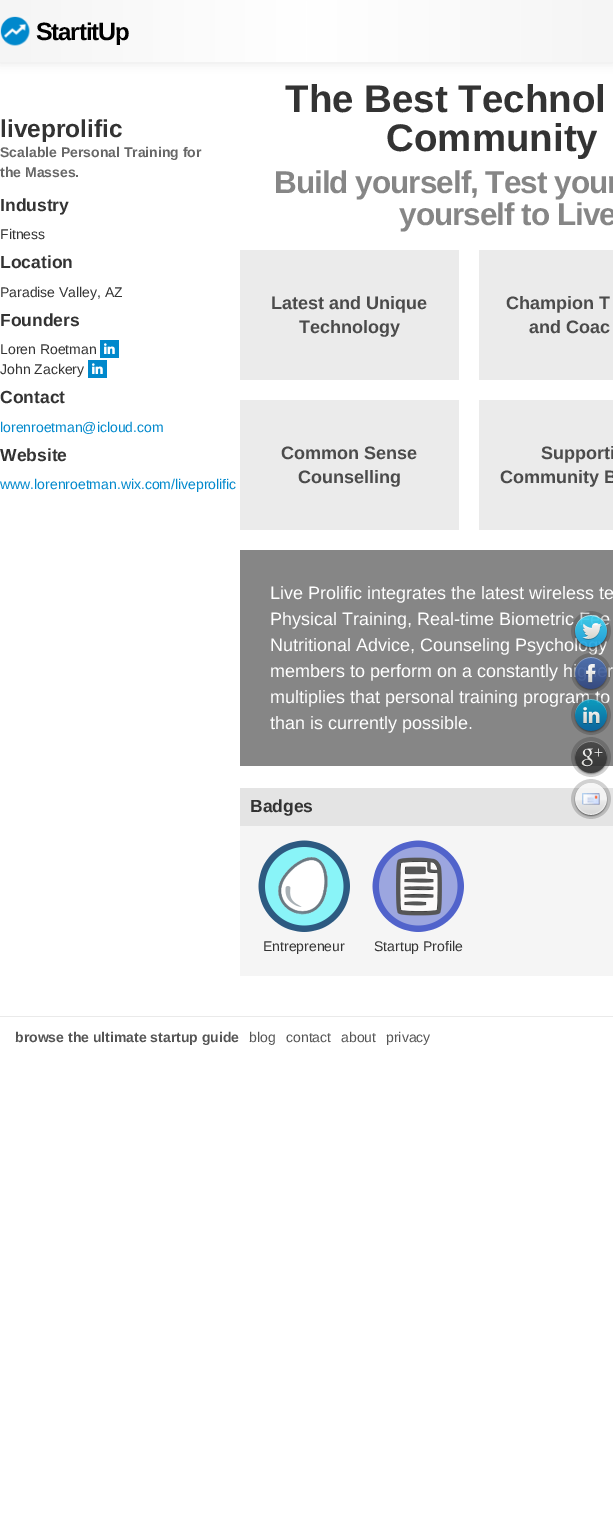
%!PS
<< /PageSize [613 1522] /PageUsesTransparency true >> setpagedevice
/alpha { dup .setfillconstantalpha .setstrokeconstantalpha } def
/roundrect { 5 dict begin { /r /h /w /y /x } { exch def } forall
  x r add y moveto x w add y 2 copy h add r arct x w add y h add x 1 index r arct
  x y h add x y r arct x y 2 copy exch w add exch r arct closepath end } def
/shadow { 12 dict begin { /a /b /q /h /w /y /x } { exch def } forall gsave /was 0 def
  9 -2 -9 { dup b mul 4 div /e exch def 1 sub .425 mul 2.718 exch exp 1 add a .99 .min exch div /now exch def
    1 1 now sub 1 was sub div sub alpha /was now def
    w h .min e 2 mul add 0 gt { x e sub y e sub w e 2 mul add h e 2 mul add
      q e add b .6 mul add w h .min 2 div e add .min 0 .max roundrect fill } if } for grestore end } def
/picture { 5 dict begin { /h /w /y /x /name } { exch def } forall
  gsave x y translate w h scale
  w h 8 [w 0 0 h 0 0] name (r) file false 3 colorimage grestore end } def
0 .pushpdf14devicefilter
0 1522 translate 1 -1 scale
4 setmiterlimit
1 setgray
0 0 613 1522 rectfill
0 setgray
0 1 613 62 0 5 0.1 shadow
gsave newpath 0 0 moveto 613 0 lineto 613 62 lineto 0 62 lineto closepath clip newpath
<< /ShadingType 2 /ColorSpace /DeviceRGB /Coords [0 31 613 31] /Extend [true true] /Function << /FunctionType 3 /Domain [0 1] /Functions [<< /FunctionType 2 /Domain [0 1] /C0 [0.961 0.961 0.961] /C1 [1 1 1] /N 1 >> << /FunctionType 2 /Domain [0 1] /C0 [1 1 1] /C1 [0.961 0.961 0.961] /N 1 >>] /Bounds [0.5] /Encode [0 1 0 1] >> >> shfill grestore
(img1.rgb) 0 16 30 30 picture
/LiberationSans-Bold [25 0 0 -25 0 0] selectfont
36 40 moveto -1 0 (S) ashow
/LiberationSans-Bold [24 0 0 -24 0 0] selectfont
51 40 moveto -1 0 (tartit) ashow
/LiberationSans-Bold [25 0 0 -25 0 0] selectfont
98 40 moveto -1 0 (U) ashow
/LiberationSans-Bold [24 0 0 -24 0 0] selectfont
115 40 moveto -1 0 (p) ashow
/LiberationSans-Bold [24.5 0 0 -24.5 0 0] selectfont
0.2 setgray
0 137 moveto (liveprolific) show
/LiberationSans-Bold [14 0 0 -14 0 0] selectfont
0.404 setgray
0 157 moveto (Scalable Personal Training for) show
0 177 moveto (the Masses.) show
/LiberationSans-Bold [17.5 0 0 -17.5 0 0] selectfont
0.2 setgray
0 211 moveto (Industry) show
/LiberationSans-Regular [14 0 0 -14 0 0] selectfont
0 239 moveto (Fitness) show
/LiberationSans-Bold [17.5 0 0 -17.5 0 0] selectfont
0 268 moveto (Location) show
/LiberationSans-Regular [14 0 0 -14 0 0] selectfont
0 297 moveto (Paradise Valley, AZ) show
/LiberationSans-Bold [17.5 0 0 -17.5 0 0] selectfont
0 326 moveto (Founders) show
/LiberationSans-Regular [14 0 0 -14 0 0] selectfont
0 354 moveto (Loren Roetman) show
0 0.533 0.8 setrgbcolor
100 340 19 18 rectfill
(img2.rgb) 104 343 11 11 picture
0.2 setgray
0 374 moveto (John Zackery) show
0 0.533 0.8 setrgbcolor
88 360 19 18 rectfill
(img2.rgb) 92 363 11 11 picture
/LiberationSans-Bold [17.5 0 0 -17.5 0 0] selectfont
0.2 setgray
0 403 moveto (Contact) show
/LiberationSans-Regular [14 0 0 -14 0 0] selectfont
0 0.533 0.8 setrgbcolor
0 432 moveto (lorenroetman@icloud.com) show
/LiberationSans-Bold [17.5 0 0 -17.5 0 0] selectfont
0.2 setgray
0 461 moveto (Website) show
/LiberationSans-Regular [14 0 0 -14 0 0] selectfont
0 0.533 0.8 setrgbcolor
0 489 moveto (www.lorenroetman.wix.com/liveprolific) show
/LiberationSans-Bold [38.5 0 0 -38.5 0 0] selectfont
0.2 setgray
285 112 moveto (The Best Technol) show
386 151 moveto (Community) show
/LiberationSans-Bold [31.5 0 0 -31.5 0 0] selectfont
0.525 setgray
274 193 moveto -1 0 (Build yourself, Test your) ashow
399 225 moveto -1 0 (yourself to Live) ashow
0.922 setgray
240 250 219 130 rectfill
/LiberationSans-Bold [18 0 0 -18 0 0] selectfont
0.294 setgray
271 309 moveto (Latest and Unique) show
299 333 moveto (Technology) show
0.922 setgray
479 250 134 130 rectfill
0.294 setgray
506 309 moveto (Champion T) show
529 333 moveto (and Coac) show
0.922 setgray
240 400 219 130 rectfill
0.294 setgray
281 459 moveto (Common Sense) show
298 483 moveto (Counselling) show
0.922 setgray
479 400 134 130 rectfill
0.294 setgray
541 459 moveto (Supporti) show
500 483 moveto (Community B) show
0.525 setgray
240 550 373 216 rectfill
/LiberationSans-Regular [18 0 0 -18 0 0] selectfont
1 setgray
270 599 moveto (Live Prolific integrates the latest wireless te) show
270 625 moveto (Physical Training, Real-time Biometric) show
270 651 moveto (Nutritional Advice, Counseling Psychology) show
270 677 moveto (members to perform on a constantly hi) show
607 677 moveto (r) show
270 703 moveto (multiplies that personal training program to) show
270 729 moveto (than is currently possible.) show
0.961 setgray
240 826 373 150 rectfill
0.894 setgray
240 788 373 38 rectfill
/LiberationSans-Bold [17.5 0 0 -17.5 0 0] selectfont
0.2 setgray
250 812 moveto (Badges) show
(img3.rgb) 258 840 92 92 picture
/LiberationSans-Regular [14 0 0 -14 0 0] selectfont
263 951 moveto (Entrepreneur) show
(img4.rgb) 372 840 92 92 picture
374 951 moveto (Startup Profile) show
(img5.rgb) 571 611 40 40 picture
(img6.rgb) 571 653 40 40 picture
(img7.rgb) 571 695 40 40 picture
(img8.rgb) 571 737 40 40 picture
(img9.rgb) 571 779 40 40 picture
0.918 setgray
0 1016 613 1 rectfill
/LiberationSans-Bold [14 0 0 -14 0 0] selectfont
0.333 setgray
15 1042 moveto (browse the ultimate startup guide) show
/LiberationSans-Regular [14 0 0 -14 0 0] selectfont
249 1042 moveto (blog) show
286 1042 moveto (contact) show
341 1042 moveto (about) show
386 1042 moveto (privacy) show
.poppdf14devicefilter showpage
